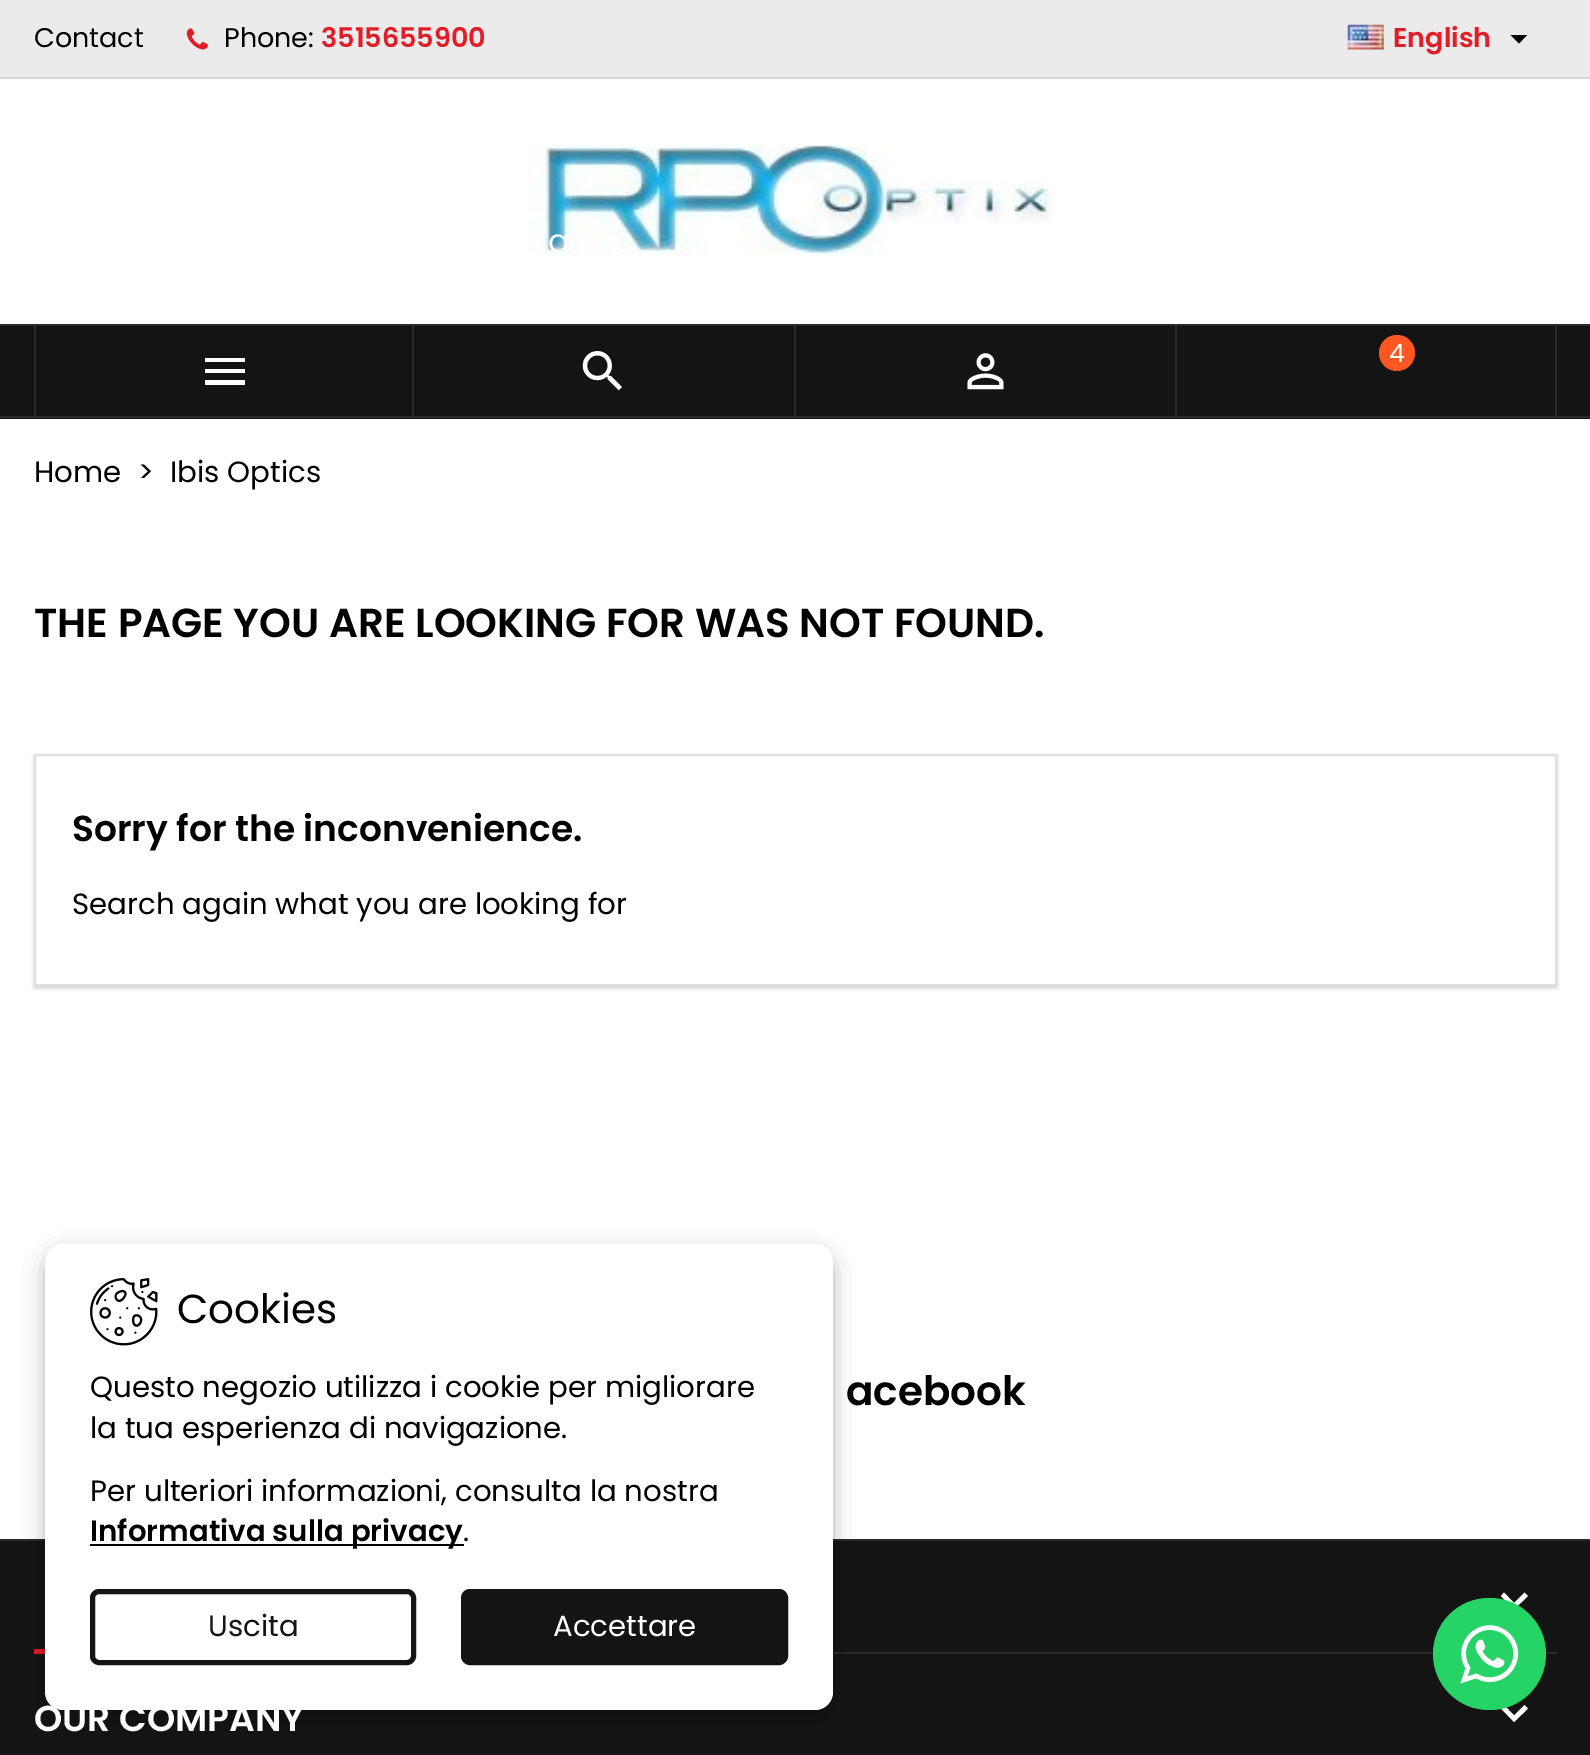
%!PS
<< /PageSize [1590 1755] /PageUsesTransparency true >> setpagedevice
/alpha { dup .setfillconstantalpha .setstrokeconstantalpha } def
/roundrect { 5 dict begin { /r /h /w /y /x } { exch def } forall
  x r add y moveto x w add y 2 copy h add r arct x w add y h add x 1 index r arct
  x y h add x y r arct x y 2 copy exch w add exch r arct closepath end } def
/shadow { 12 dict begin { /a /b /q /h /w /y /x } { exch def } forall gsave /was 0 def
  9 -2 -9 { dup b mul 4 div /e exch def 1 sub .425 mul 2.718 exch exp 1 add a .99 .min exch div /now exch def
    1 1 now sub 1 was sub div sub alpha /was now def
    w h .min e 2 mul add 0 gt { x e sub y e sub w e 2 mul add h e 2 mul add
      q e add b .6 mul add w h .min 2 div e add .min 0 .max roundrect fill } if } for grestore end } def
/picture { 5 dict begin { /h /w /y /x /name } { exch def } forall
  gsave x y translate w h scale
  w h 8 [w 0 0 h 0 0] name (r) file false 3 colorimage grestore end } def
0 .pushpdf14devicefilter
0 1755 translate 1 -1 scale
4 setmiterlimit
1 setgray
0 0 1590 1755 rectfill
0.922 setgray
0 0 1590 77 rectfill
0.839 0.831 0.831 setrgbcolor
0 77 1590 2 rectfill
/Poppins-Regular [27 0 0 -27 0 0] selectfont
0 setgray
34 47 moveto (Contact) show
(img1.rgb) 186 28 22 22 picture
224 47 moveto (Phone:) show
/Poppins-SemiBold [27 0 0 -27 0 0] selectfont
0.89 0.114 0.153 setrgbcolor
321 47 moveto (3515655900) show
(img2.rgb) 1347 24 37 26 picture
1393 47 moveto (English) show
0 setgray
newpath 1510.5 35 moveto 1527 35 lineto 1519 43.5 lineto closepath fill
(img3.rgb) 526 144 527 113 picture
0.078 setgray
0 326 1590 93 rectfill
0.169 0.161 0.169 setrgbcolor
0 324 1590 2 rectfill
0 416 1590 2 rectfill
412 326 2 90 rectfill
34 326 2 90 rectfill
1 setgray
newpath 205 358 moveto 245 358 lineto 245 362 lineto 205 362 lineto closepath 205 373 moveto 205 369 lineto 245 369 lineto 245 373 lineto closepath 205 385 moveto 205 380 lineto 245 380 lineto 245 385 lineto closepath fill
0.169 0.161 0.169 setrgbcolor
794 326 2 90 rectfill
(img4.rgb) 582 351 40 40 picture
1175 326 2 90 rectfill
(img5.rgb) 967 353 37 37 picture
1555 326 2 90 rectfill
1 0.341 0.133 setrgbcolor
newpath 1397 353 18 0 360 arc closepath fill
/Poppins-Regular [25 0 0 -25 0 0] selectfont
1 setgray
1389 362 moveto (4) show
0.078 setgray
0 1541 1590 214 rectfill
0.161 setgray
0 1539 1590 2 rectfill
/Poppins-Regular [32 0 0 -32 0 0] selectfont
0.965 0.98 0.984 setrgbcolor
548 252 moveto (a) show
0.161 setgray
833 1652 724 2 rectfill
0.89 0.114 0.153 setrgbcolor
34 1649 11 5 rectfill
0 setgray
45 1253 788 466 18 11 0.3 shadow
1 setgray
45 1244 788 466 18 roundrect fill
(img6.rgb) 90 1278 68 68 picture
/Poppins-Regular [40.5 0 0 -40.5 0 0] selectfont
0 setgray
177 1323 moveto (Cookies) show
/Poppins-Regular [29.25 0 0 -29.25 0 0] selectfont
90 1397 moveto (Questo negozio utilizza i cookie per migliorare) show
90 1438 moveto (la tua esperienza di navigazione.) show
90 1501 moveto (Per ulteriori informazioni, consulta la nostra) show
90 1544 374 2 rectfill
/Poppins-SemiBold [29.25 0 0 -29.25 0 0] selectfont
90 1541 moveto (Informativa sulla privacy) show
/Poppins-Regular [29.25 0 0 -29.25 0 0] selectfont
463 1541 moveto (.) show
0.078 setgray
5 setlinewidth
92.5 1591.5 321 71 6.5 roundrect stroke
208 1636 moveto (Uscita) show
463.5 1591.5 322 71 6.5 roundrect gsave fill grestore
stroke
1 setgray
553 1636 moveto (Accettare) show
newpath 1504 1592.5 moveto 1514 1603 lineto 1524.5 1592.5 lineto 1528 1596 lineto 1514 1609.5 lineto 1501 1596 lineto closepath fill
newpath 1504 1705 moveto 1514 1715.5 lineto 1524.5 1705 lineto 1528 1708.5 lineto 1514 1722 lineto 1501 1708.5 lineto closepath fill
0.145 0.827 0.4 setrgbcolor
1433 1598 113 112 56 roundrect fill
(img7.rgb) 1460 1625 59 59 picture
/Poppins-SemiBold [36 0 0 -36 0 0] selectfont
1 setgray
34 1731 moveto (OUR COMPANY) show
/Poppins-Regular [29.25 0 0 -29.25 0 0] selectfont
0 setgray
34 482 moveto (Home) show
138 482 moveto (>) show
170 482 moveto (Ibis Optics) show
/Poppins-SemiBold [40.5 0 0 -40.5 0 0] selectfont
34 637 moveto (THE PAGE YOU ARE LOOKING FOR WAS NOT FOUND.) show
34 756 1523 232 0 2 0.2 shadow
1 setgray
newpath 35 755 moveto 1556 755 lineto 1556 985 lineto 35 985 lineto closepath gsave fill grestore
0.875 setgray
2 setlinewidth
stroke
/Poppins-SemiBold [36 0 0 -36 0 0] selectfont
0 setgray
72 841 moveto (Sorry for the inconvenience.) show
/Poppins-Regular [29.25 0 0 -29.25 0 0] selectfont
72 914 moveto (Search again what you are looking for) show
/Poppins-SemiBold [40.5 0 0 -40.5 0 0] selectfont
846 1405 moveto (acebook) show
.poppdf14devicefilter showpage
